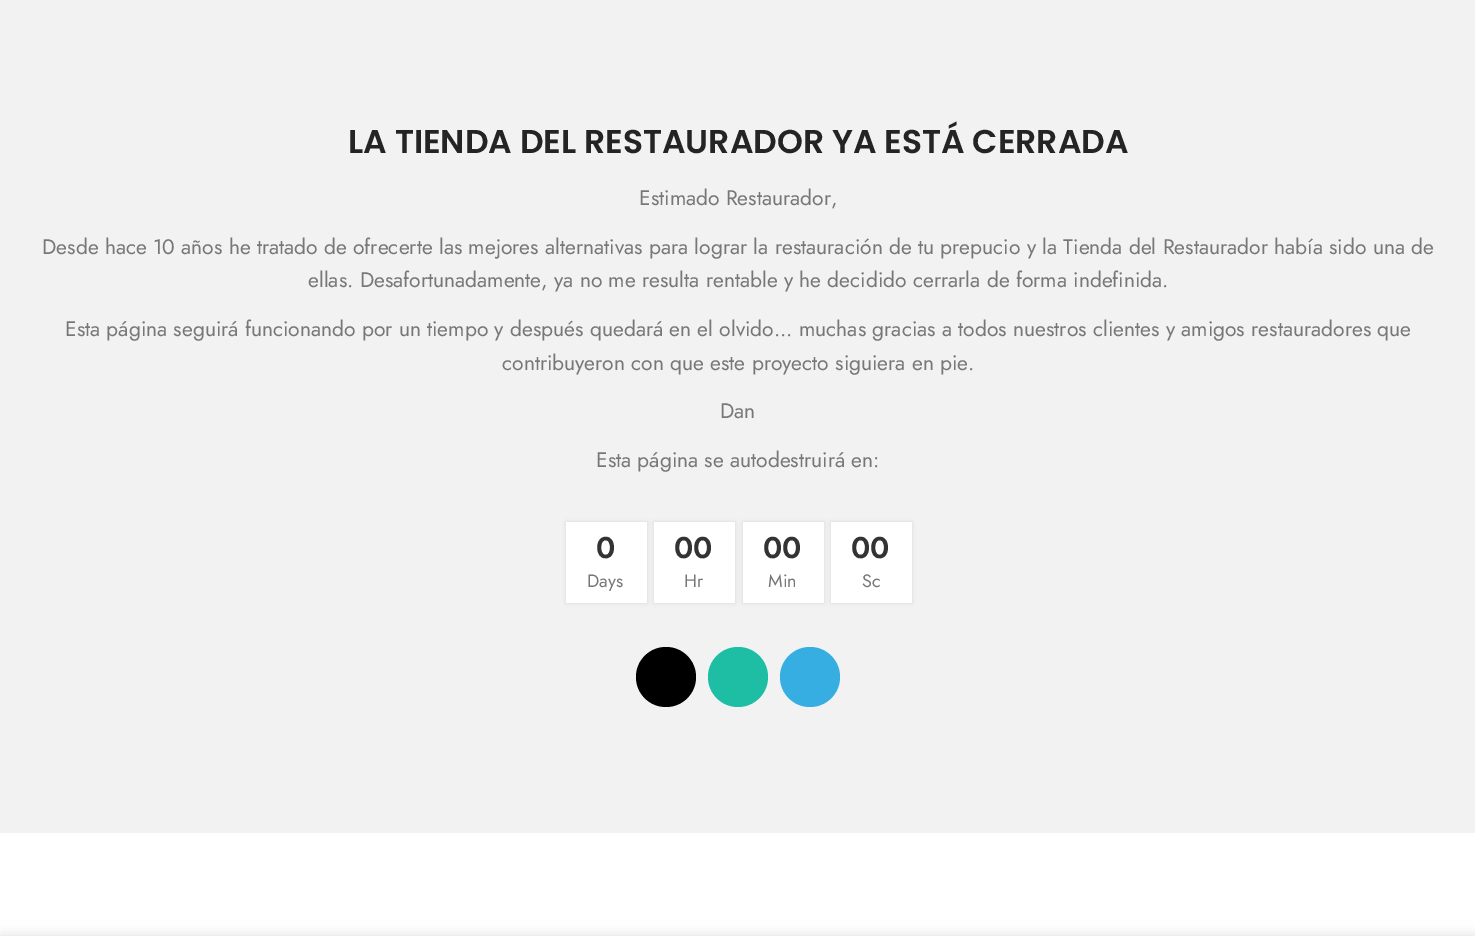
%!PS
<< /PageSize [1475 936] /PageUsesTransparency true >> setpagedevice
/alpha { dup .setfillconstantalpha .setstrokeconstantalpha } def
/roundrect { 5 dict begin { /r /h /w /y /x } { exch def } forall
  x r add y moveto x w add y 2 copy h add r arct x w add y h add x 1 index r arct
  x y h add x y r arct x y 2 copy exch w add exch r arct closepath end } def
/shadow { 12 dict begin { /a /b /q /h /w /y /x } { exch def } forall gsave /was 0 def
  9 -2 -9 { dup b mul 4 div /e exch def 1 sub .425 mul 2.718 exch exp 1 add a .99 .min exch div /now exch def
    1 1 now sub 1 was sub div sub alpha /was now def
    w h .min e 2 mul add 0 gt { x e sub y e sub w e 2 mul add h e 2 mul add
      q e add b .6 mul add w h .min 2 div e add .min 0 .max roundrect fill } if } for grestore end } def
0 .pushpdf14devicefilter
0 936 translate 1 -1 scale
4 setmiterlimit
1 setgray
0 0 1475 936 rectfill
0.949 setgray
0 0 1475 833 rectfill
/Poppins-SemiBold [33 0 0 -33 0 0] selectfont
0.141 setgray
348 153 moveto (LA TIENDA DEL RESTAURADOR YA ESTÁ CERRADA) show
/Jost-Regular [21 0 0 -21 0 0] selectfont
0.467 setgray
639 205 moveto (Estimado Restaurador,) show
42 254 moveto (Desde hace 10 años he tratado de ofrecerte las mejores alternativas para lograr la restauración de tu prepucio y la Tienda del Restaurador había sido una de) show
308 287 moveto (ellas. Desafortunadamente, ya no me resulta rentable y he decidido cerrarla de forma indefinida.) show
65 336 moveto (Esta página seguirá funcionando por un tiempo y después quedará en el olvido... muchas gracias a todos nuestros clientes y amigos restauradores que) show
502 370 moveto (contribuyeron con que este proyecto siguiera en pie.) show
720 418 moveto (Dan) show
596 467 moveto (Esta página se autodestruirá en:) show
0 setgray
566 522 81 81 0 2 0.1 shadow
1 setgray
566 522 81 81 rectfill
/Jost-SemiBold [30 0 0 -30 0 0] selectfont
0.2 setgray
596 558 moveto (0) show
/Jost-Regular [18 0 0 -18 0 0] selectfont
0.467 setgray
587 587 moveto (Days) show
0 setgray
654 522 81 81 0 2 0.1 shadow
1 setgray
654 522 81 81 rectfill
/Jost-SemiBold [30 0 0 -30 0 0] selectfont
0.2 setgray
674 558 moveto (00) show
/Jost-Regular [18 0 0 -18 0 0] selectfont
0.467 setgray
684 587 moveto (Hr) show
0 setgray
743 522 81 81 0 2 0.1 shadow
1 setgray
743 522 81 81 rectfill
/Jost-SemiBold [30 0 0 -30 0 0] selectfont
0.2 setgray
763 558 moveto (00) show
/Jost-Regular [18 0 0 -18 0 0] selectfont
0.467 setgray
768 587 moveto (Min) show
0 setgray
831 522 81 81 0 2 0.1 shadow
1 setgray
831 522 81 81 rectfill
/Jost-SemiBold [30 0 0 -30 0 0] selectfont
0.2 setgray
851 558 moveto (00) show
/Jost-Regular [18 0 0 -18 0 0] selectfont
0.467 setgray
862 587 moveto (Sc) show
0 setgray
newpath 666 677 30 0 360 arc closepath fill
0.118 0.745 0.647 setrgbcolor
newpath 738 677 30 0 360 arc closepath fill
0.216 0.682 0.886 setrgbcolor
newpath 810 677 30 0 360 arc closepath fill
0 setgray
0 936 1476 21 0 7 0.14 shadow
.poppdf14devicefilter showpage
